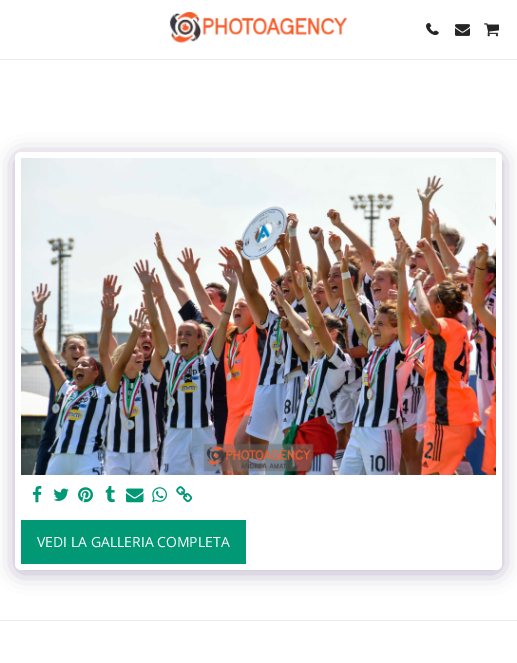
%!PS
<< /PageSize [517 663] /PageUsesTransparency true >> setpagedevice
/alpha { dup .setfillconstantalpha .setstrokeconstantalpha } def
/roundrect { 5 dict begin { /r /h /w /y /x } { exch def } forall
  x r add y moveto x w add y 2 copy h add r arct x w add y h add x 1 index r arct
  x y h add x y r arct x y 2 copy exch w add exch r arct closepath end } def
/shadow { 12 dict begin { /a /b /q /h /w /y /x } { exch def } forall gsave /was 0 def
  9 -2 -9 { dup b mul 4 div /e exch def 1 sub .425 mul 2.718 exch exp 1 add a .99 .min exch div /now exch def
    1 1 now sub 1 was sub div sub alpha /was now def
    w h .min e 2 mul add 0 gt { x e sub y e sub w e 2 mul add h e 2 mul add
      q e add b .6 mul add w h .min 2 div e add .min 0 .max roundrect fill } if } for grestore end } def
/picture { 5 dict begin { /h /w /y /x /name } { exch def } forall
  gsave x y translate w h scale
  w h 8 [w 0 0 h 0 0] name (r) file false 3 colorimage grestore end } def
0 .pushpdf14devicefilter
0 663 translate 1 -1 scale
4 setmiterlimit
1 setgray
0 0 517 663 rectfill
0.922 setgray
0 59 517 1 rectfill
(img1.rgb) 169 12 179 31 picture
(img2.rgb) 427 23 12 12 picture
(img3.rgb) 426 23 12 12 picture
(img4.rgb) 455 24 15 12 picture
(img5.rgb) 484 23 15 14 picture
0.302 0.247 0.478 setrgbcolor
15 155 487 418 6 10 0.4 shadow
1 setgray
15 152 487 418 6 roundrect fill
(img6.rgb) 21 158 475 317 picture
(img7.rgb) 32 486 10 17 picture
(img8.rgb) 53 488 16 13 picture
(img9.rgb) 78 487 15 16 picture
(img10.rgb) 105 486 10 17 picture
(img11.rgb) 126 488 18 15 picture
(img12.rgb) 152 487 15 16 picture
(img13.rgb) 176 486 16 17 picture
0.004 0.596 0.459 setrgbcolor
21 520 225 44 rectfill
/OpenSans-Regular [14 0 0 -14 0 0] selectfont
1 setgray
37 547 moveto (VEDI LA GALLERIA COMPLETA) show
0.922 setgray
0 620 517 1 rectfill
.poppdf14devicefilter showpage
